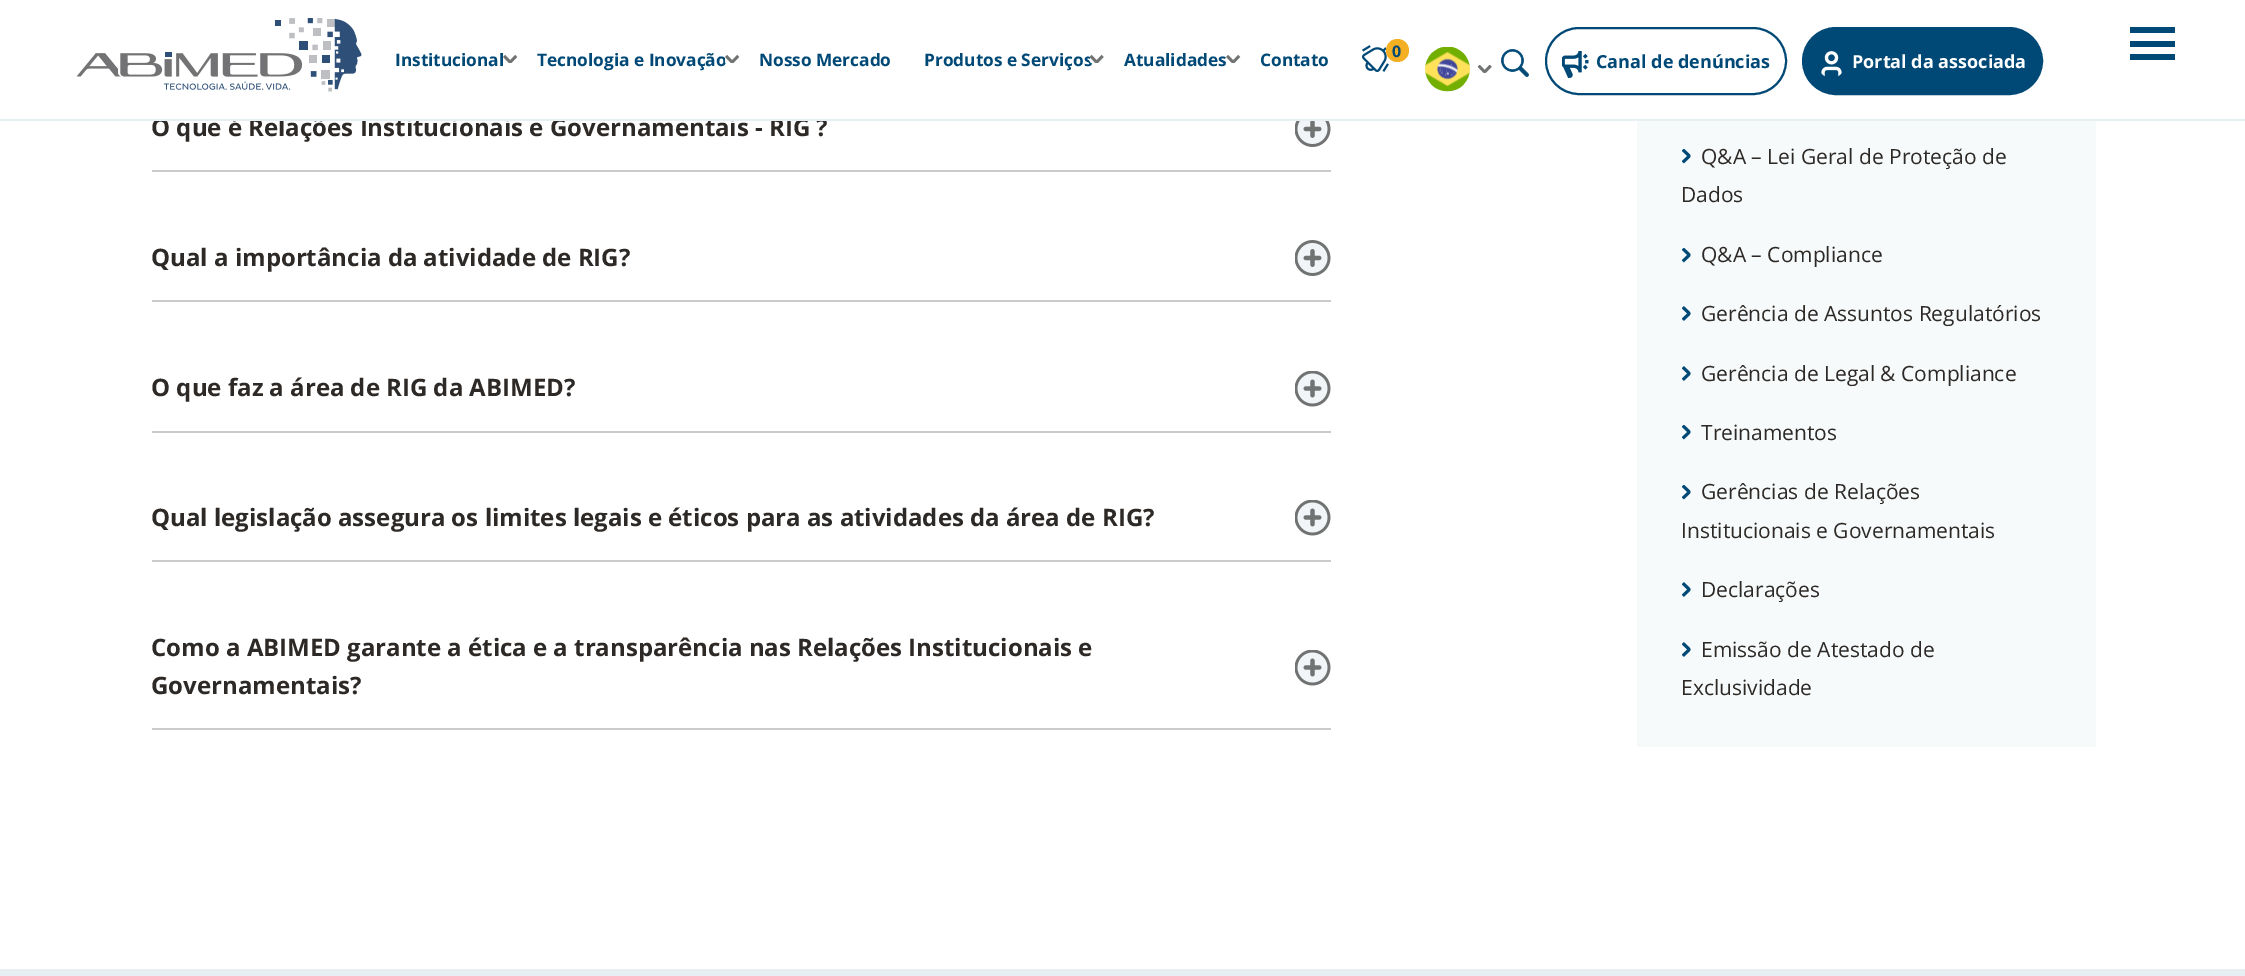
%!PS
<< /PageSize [2245 976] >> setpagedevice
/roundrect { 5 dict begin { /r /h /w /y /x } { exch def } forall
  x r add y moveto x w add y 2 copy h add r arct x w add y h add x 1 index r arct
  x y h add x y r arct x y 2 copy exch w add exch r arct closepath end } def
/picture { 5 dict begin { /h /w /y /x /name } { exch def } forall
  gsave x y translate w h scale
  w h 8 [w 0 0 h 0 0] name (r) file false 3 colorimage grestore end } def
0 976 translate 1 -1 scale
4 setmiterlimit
1 setgray
0 0 2245 976 rectfill
/OpenSans-Bold [24 0 0 -24 0 0] selectfont
0.176 0.161 0.149 setrgbcolor
151 136 moveto (O que é Relações Institucionais e Governamentais - RIG ?) show
1 setgray
157 117 667 2 rectfill
0.906 0.937 0.949 setrgbcolor
0 119 2245 2 rectfill
(img1.rgb) 77 18 285 74 picture
/OpenSans-Bold [17.25 0 0 -17.25 0 0] selectfont
0 0.286 0.463 setrgbcolor
395 66 moveto (Institucional) show
(img2.rgb) 503 54 15 9 picture
537 66 moveto (Tecnologia e Inovação) show
(img3.rgb) 725 54 15 9 picture
759 66 moveto (Nosso Mercado) show
924 66 moveto (Produtos e Serviços) show
(img4.rgb) 1089 54 15 9 picture
1124 66 moveto (Atualidades) show
(img2.rgb) 1226 54 15 9 picture
1260 66 moveto (Contato) show
(img5.rgb) 1362 45 27 27 picture
0.957 0.686 0.137 setrgbcolor
newpath 1397.5 50.5 11.5 0 360 arc closepath fill
/OpenSans-Bold [16 0 0 -16 0 0] selectfont
0 0.286 0.463 setrgbcolor
1392 57 moveto (0) show
(img6.rgb) 1425 47 45 45 picture
(img7.rgb) 1478 65 14 9 picture
(img8.rgb) 1501 49 28 28 picture
2 setlinewidth
1546 28 240 66 33 roundrect stroke
(img9.rgb) 1562 51 27 27 picture
/OpenSans-Bold [18 0 0 -18 0 0] selectfont
1596 68 moveto (Canal de denúncias) show
1803 28 239 66 33 roundrect gsave fill grestore
stroke
(img10.rgb) 1821 51 21 26 picture
1 setgray
1852 68 moveto (Portal da associada) show
0 0.286 0.463 setrgbcolor
2130 27 45 6 rectfill
2130 41 45 6 rectfill
2130 54 45 6 rectfill
(img11.rgb) 1295 121 36 26 picture
0.8 0.788 0.788 setrgbcolor
152 170 1179 2 rectfill
(img12.rgb) 1295 240 36 36 picture
152 300 1179 2 rectfill
/OpenSans-Bold [24 0 0 -24 0 0] selectfont
0.176 0.161 0.149 setrgbcolor
151 266 moveto (Qual a importância da atividade de RIG?) show
(img13.rgb) 1295 371 36 36 picture
0.8 0.788 0.788 setrgbcolor
152 431 1179 2 rectfill
0.176 0.161 0.149 setrgbcolor
151 396 moveto (O que faz a área de RIG da ABIMED?) show
(img13.rgb) 1295 500 36 36 picture
0.8 0.788 0.788 setrgbcolor
152 560 1179 2 rectfill
0.176 0.161 0.149 setrgbcolor
151 526 moveto (Qual legislação assegura os limites legais e éticos para as atividades da área de RIG?) show
(img13.rgb) 1295 650 36 36 picture
0.8 0.788 0.788 setrgbcolor
152 728 1179 2 rectfill
0.176 0.161 0.149 setrgbcolor
151 656 moveto (Como a ABIMED garante a ética e a transparência nas Relações Institucionais e) show
151 694 moveto (Governamentais?) show
0.969 0.98 0.984 setrgbcolor
1637 121 459 626 rectfill
(img14.rgb) 1682 149 9 15 picture
/OpenSans-Regular [21 0 0 -21 0 0] selectfont
0.176 0.161 0.149 setrgbcolor
1701 164 moveto (Q&A – Lei Geral de Proteção de) show
1681 202 moveto (Dados) show
(img14.rgb) 1682 248 9 15 picture
1701 262 moveto (Q&A – Compliance) show
(img15.rgb) 1682 306 9 15 picture
1701 321 moveto (Gerência de Assuntos Regulatórios) show
(img15.rgb) 1682 366 9 15 picture
1701 381 moveto (Gerência de Legal & Compliance) show
(img14.rgb) 1682 425 9 15 picture
1701 440 moveto (Treinamentos) show
(img14.rgb) 1682 485 9 15 picture
1701 499 moveto (Gerências de Relações) show
1681 538 moveto (Institucionais e Governamentais) show
(img15.rgb) 1682 582 9 15 picture
1701 597 moveto (Declarações) show
(img15.rgb) 1682 642 9 15 picture
1701 657 moveto (Emissão de Atestado de) show
1681 695 moveto (Exclusividade) show
0.906 0.937 0.949 setrgbcolor
0 969 2245 7 rectfill
showpage
